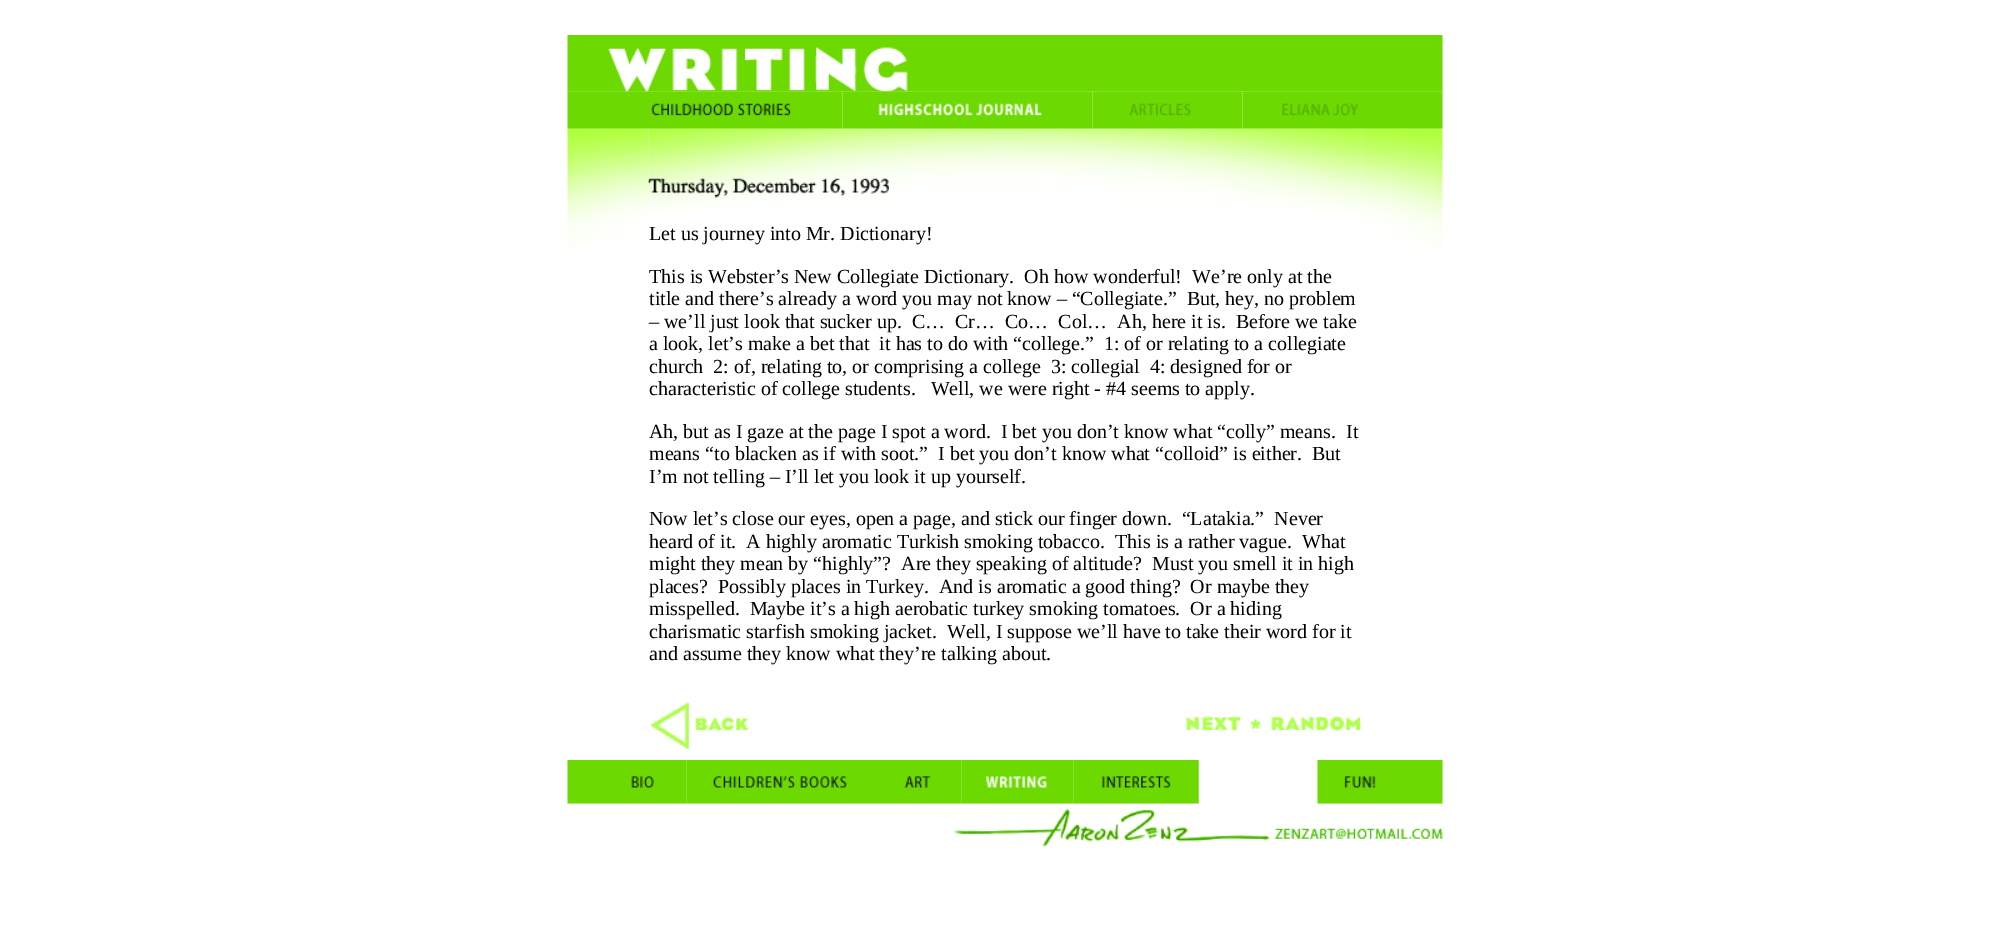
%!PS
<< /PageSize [2010 946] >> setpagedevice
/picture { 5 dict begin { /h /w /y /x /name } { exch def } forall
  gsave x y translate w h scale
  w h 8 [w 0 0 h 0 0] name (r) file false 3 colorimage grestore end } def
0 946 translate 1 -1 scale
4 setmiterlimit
1 setgray
0 0 2010 946 rectfill
(img1.rgb) 567 35 876 57 picture
(img2.rgb) 567 91 276 38 picture
(img3.rgb) 842 91 251 38 picture
(img4.rgb) 1092 91 151 38 picture
(img5.rgb) 1242 91 201 38 picture
(img6.rgb) 567 128 82 120 picture
(img8.rgb) 648 128 714 86 picture
(img7.rgb) 1361 128 82 120 picture
/LiberationSerif-Regular [20 0 0 -20 0 0] selectfont
0 setgray
649 240 moveto (Let us journey into Mr. Dictionary!) show
649 283 moveto (This is Webster’s New Collegiate Dictionary.  Oh how wonderful!  We’re only at the) show
649 305 moveto (title and there’s already a word you may not know – “Collegiate.”  But, hey, no problem) show
649 328 moveto (– we’ll just look that sucker up.  C…  Cr…  Co…  Col…  Ah, here it is.  Before we take) show
649 350 moveto (a look, let’s make a bet that  it has to do with “college.”  1: of or relating to a collegiate) show
649 373 moveto (church  2: of, relating to, or comprising a college  3: collegial  4: designed for or) show
649 395 moveto (characteristic of college students.   Well, we were right - #4 seems to apply.) show
649 438 moveto (Ah, but as I gaze at the page I spot a word.  I bet you don’t know what “colly” means.  It) show
649 460 moveto (means “to blacken as if with soot.”  I bet you don’t know what “colloid” is either.  But) show
649 483 moveto (I’m not telling – I’ll let you look it up yourself.) show
649 525 moveto (Now let’s close our eyes, open a page, and stick our finger down.  “Latakia.”  Never) show
649 548 moveto (heard of it.  A highly aromatic Turkish smoking tobacco.  This is a rather vague.  What) show
649 570 moveto (might they mean by “highly”?  Are they speaking of altitude?  Must you smell it in high) show
649 593 moveto (places?  Possibly places in Turkey.  And is aromatic a good thing?  Or maybe they) show
649 615 moveto (misspelled.  Maybe it’s a high aerobatic turkey smoking tomatoes.  Or a hiding) show
649 638 moveto (charismatic starfish smoking jacket.  Well, I suppose we’ll have to take their word for it) show
649 660 moveto (and assume they know what they’re talking about.) show
(img9.rgb) 651 702 98 47 picture
(img10.rgb) 1186 716 55 15 picture
(img11.rgb) 1250 716 112 16 picture
(img12.rgb) 567 760 120 44 picture
(img13.rgb) 686 760 194 44 picture
(img14.rgb) 880 760 82 44 picture
(img15.rgb) 961 760 113 44 picture
(img16.rgb) 1073 760 126 44 picture
(img17.rgb) 1317 760 126 44 picture
(img18.rgb) 567 803 876 44 picture
showpage
